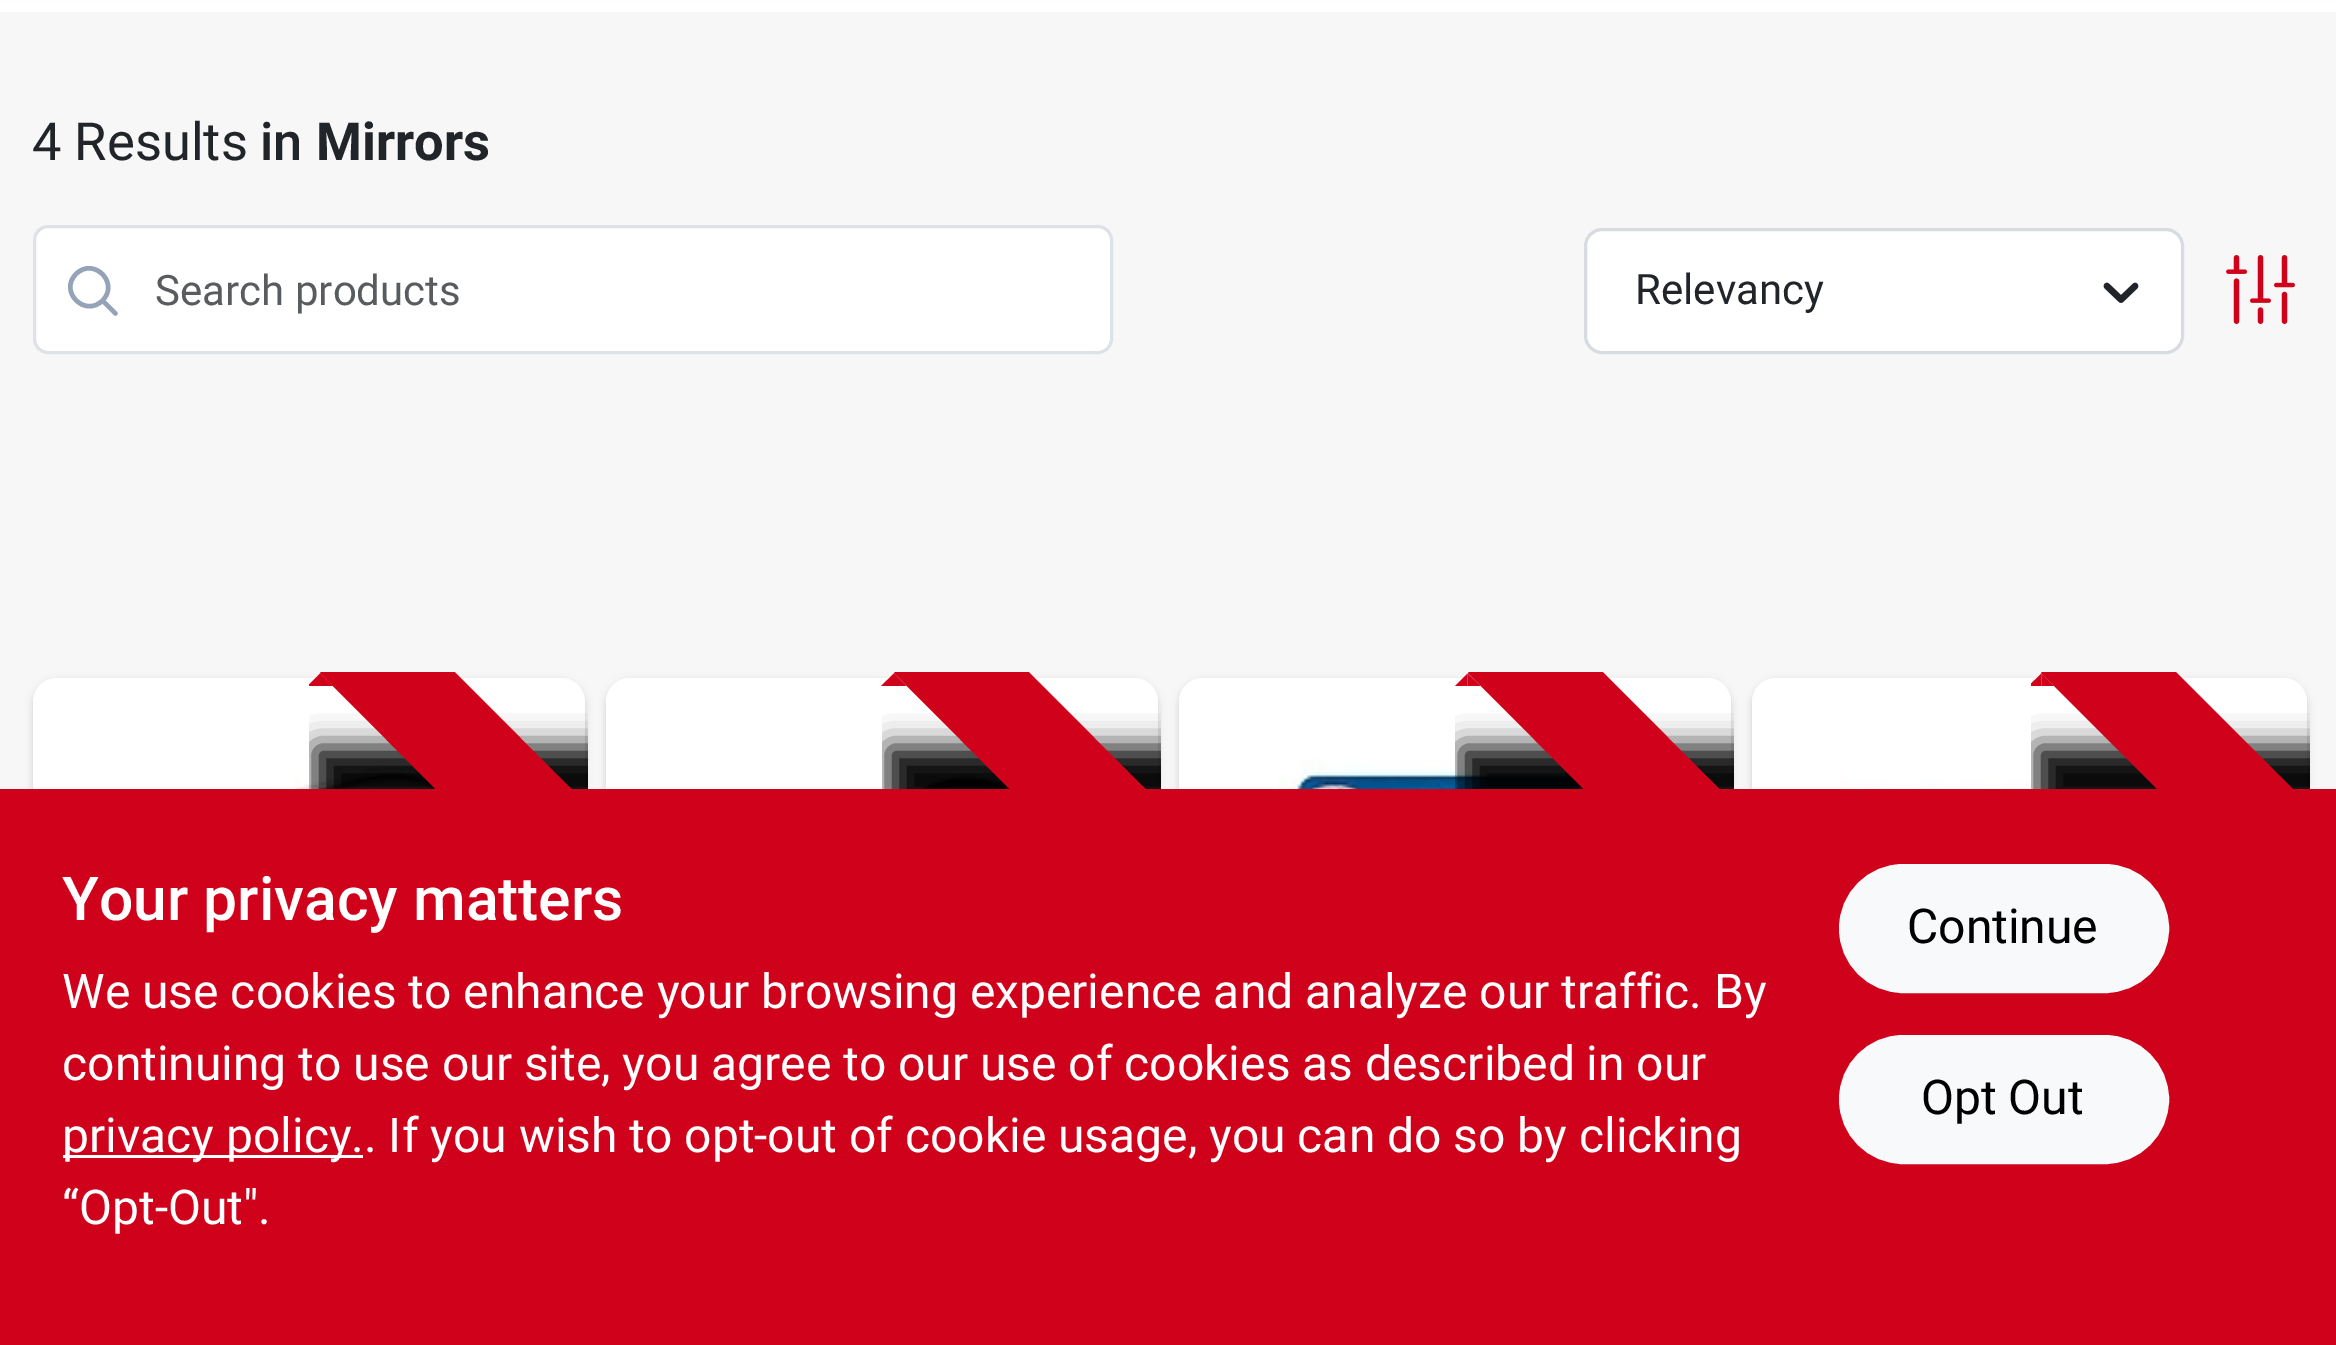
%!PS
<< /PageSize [2336 1345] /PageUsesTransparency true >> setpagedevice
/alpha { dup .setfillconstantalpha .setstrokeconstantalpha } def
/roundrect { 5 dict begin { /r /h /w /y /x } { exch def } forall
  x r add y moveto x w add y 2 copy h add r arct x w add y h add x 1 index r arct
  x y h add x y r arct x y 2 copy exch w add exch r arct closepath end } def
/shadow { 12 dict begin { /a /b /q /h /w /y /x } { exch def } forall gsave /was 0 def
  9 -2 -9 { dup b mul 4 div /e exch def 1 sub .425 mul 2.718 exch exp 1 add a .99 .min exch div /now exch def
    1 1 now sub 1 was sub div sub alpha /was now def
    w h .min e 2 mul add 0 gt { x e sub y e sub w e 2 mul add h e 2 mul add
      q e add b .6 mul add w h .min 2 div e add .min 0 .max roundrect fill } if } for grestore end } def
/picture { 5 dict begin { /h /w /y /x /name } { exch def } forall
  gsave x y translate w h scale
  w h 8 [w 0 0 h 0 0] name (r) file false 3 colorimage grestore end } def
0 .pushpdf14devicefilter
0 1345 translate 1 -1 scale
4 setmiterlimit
0.969 setgray
0 0 2336 1345 rectfill
0.992 0.996 0.996 setrgbcolor
0 0 2336 3 rectfill
1 setgray
0 3 2336 9 rectfill
/Roboto-Regular [52.5 0 0 -52.5 0 0] selectfont
0.129 0.145 0.161 setrgbcolor
32 160 moveto (4 Results) show
/Roboto-Medium [52.5 0 0 -52.5 0 0] selectfont
260 160 moveto (in) show
/Roboto-Bold [52.5 0 0 -52.5 0 0] selectfont
316 160 moveto (Mirrors) show
1 setgray
36 228 1074 123 12 roundrect fill
0.58 0.639 0.722 setrgbcolor
4.5 setlinewidth
1 setlinecap
1 setlinejoin
newpath 115.5 313.5 moveto 102.5 300.5 lineto 102.5 300.5 moveto 120 283 93.5 256.5 76 274 curveto 58.5 291.5 85 318 102.5 300.5 curveto closepath stroke
0.871 0.886 0.902 setrgbcolor
3 setlinewidth
0 setlinecap
0 setlinejoin
34.5 226.5 1077 126 13.5 roundrect stroke
/Roboto-Regular [42 0 0 -42 0 0] selectfont
0.349 0.361 0.373 setrgbcolor
155 305 moveto (Search products) show
1 setgray
1585.5 229.5 597 123 16.5 roundrect gsave fill grestore
0.847 0.859 0.875 setrgbcolor
stroke
0.129 0.145 0.161 setrgbcolor
1635 304 moveto (Relevancy) show
(img1.rgb) 2103 282 36 21 picture
(img2.rgb) 2226 255 69 69 picture
0 setgray
33 681 552 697 24 3 0.06 shadow
33 681 552 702 24 4.5 0.1 shadow
1 setgray
33 678 552 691 24 roundrect fill
(img3.rgb) 92 765 344 24 picture
0 setgray
606 681 552 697 24 3 0.06 shadow
606 681 552 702 24 4.5 0.1 shadow
1 setgray
606 678 552 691 24 roundrect fill
(img4.rgb) 656 770 354 19 picture
gsave
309 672 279 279 rectclip
0 setgray
315 747 345 66 0 15 1 shadow
grestore
gsave
309 672 279 279 rectclip
0.816 0.008 0.106 setrgbcolor
newpath 388 605 moveto 653 871 lineto 585 939 lineto 320 673 lineto closepath fill
grestore
0.816 0.008 0.106 setrgbcolor
newpath 320 673.5 moveto 333 686 lineto 320 686 lineto closepath fill
gsave
309 672 279 279 rectclip
newpath 307.5 686 moveto 320 673.5 lineto 320 686 lineto closepath fill
grestore
0 setgray
1179 681 552 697 24 3 0.06 shadow
1179 681 552 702 24 4.5 0.1 shadow
1 setgray
1179 678 552 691 24 roundrect fill
(img5.rgb) 1278 759 306 30 picture
gsave
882 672 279 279 rectclip
0 setgray
888 747 345 66 0 15 1 shadow
grestore
gsave
882 672 279 279 rectclip
0.816 0.008 0.106 setrgbcolor
newpath 962 605 moveto 1227 871 lineto 1159 939 lineto 894 673 lineto closepath fill
grestore
0.816 0.008 0.106 setrgbcolor
newpath 894 673.5 moveto 906.5 686 lineto 894 686 lineto closepath 881 686 moveto 894 673.5 lineto 894 686 lineto closepath fill
0 setgray
1752 681 555 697 24 3 0.06 shadow
1752 681 555 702 24 4.5 0.1 shadow
1 setgray
1752 678 555 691 24 roundrect fill
(img6.rgb) 1840 779 317 10 picture
gsave
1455 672 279 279 rectclip
0 setgray
1461 747 345 66 0 15 1 shadow
grestore
gsave
1455 672 279 279 rectclip
0.816 0.008 0.106 setrgbcolor
newpath 1536 605 moveto 1801 871 lineto 1733 939 lineto 1468 673 lineto closepath fill
grestore
0.816 0.008 0.106 setrgbcolor
newpath 1467.5 673.5 moveto 1480.5 686 lineto 1467.5 686 lineto closepath fill
newpath 1455 686 moveto 1467.5 673.5 lineto 1467.5 686 lineto closepath fill
gsave
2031 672 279 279 rectclip
0 setgray
2037 747 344 66 0 15 1 shadow
grestore
gsave
2031 672 279 279 rectclip
newpath 2109 605 moveto 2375 871 lineto 2307 939 lineto 2041 673 lineto closepath fill
grestore
newpath 2041.5 673.5 moveto 2054 686 lineto 2041.5 686 lineto closepath fill
gsave
2031 672 279 279 rectclip
newpath 2028.5 686 moveto 2041.5 673.5 lineto 2041.5 686 lineto closepath fill
grestore
0 789 2336 556 rectfill
/Roboto-Medium [60.5 0 0 -60.5 0 0] selectfont
1 setgray
62 920 moveto (Your privacy matters) show
/Roboto-Regular [48 0 0 -48 0 0] selectfont
62 1008 moveto (We use cookies to enhance your browsing experience and analyze our traffic. By) show
62 1080 moveto (continuing to use our site, you agree to our use of cookies as described in our) show
63 1155 300 3 rectfill
62 1152 moveto (privacy policy.. If you wish to opt-out of cookie usage, you can do so by clicking) show
62 1224 moveto (“Opt-Out".) show
0.973 0.976 0.98 setrgbcolor
1840.5 865.5 327 126 63 roundrect gsave fill grestore
stroke
0 setgray
1907 943 moveto (Continue) show
0.973 0.976 0.98 setrgbcolor
1840.5 1036.5 327 126 63 roundrect gsave fill grestore
stroke
0 setgray
1921 1114 moveto (Opt Out) show
.poppdf14devicefilter showpage
